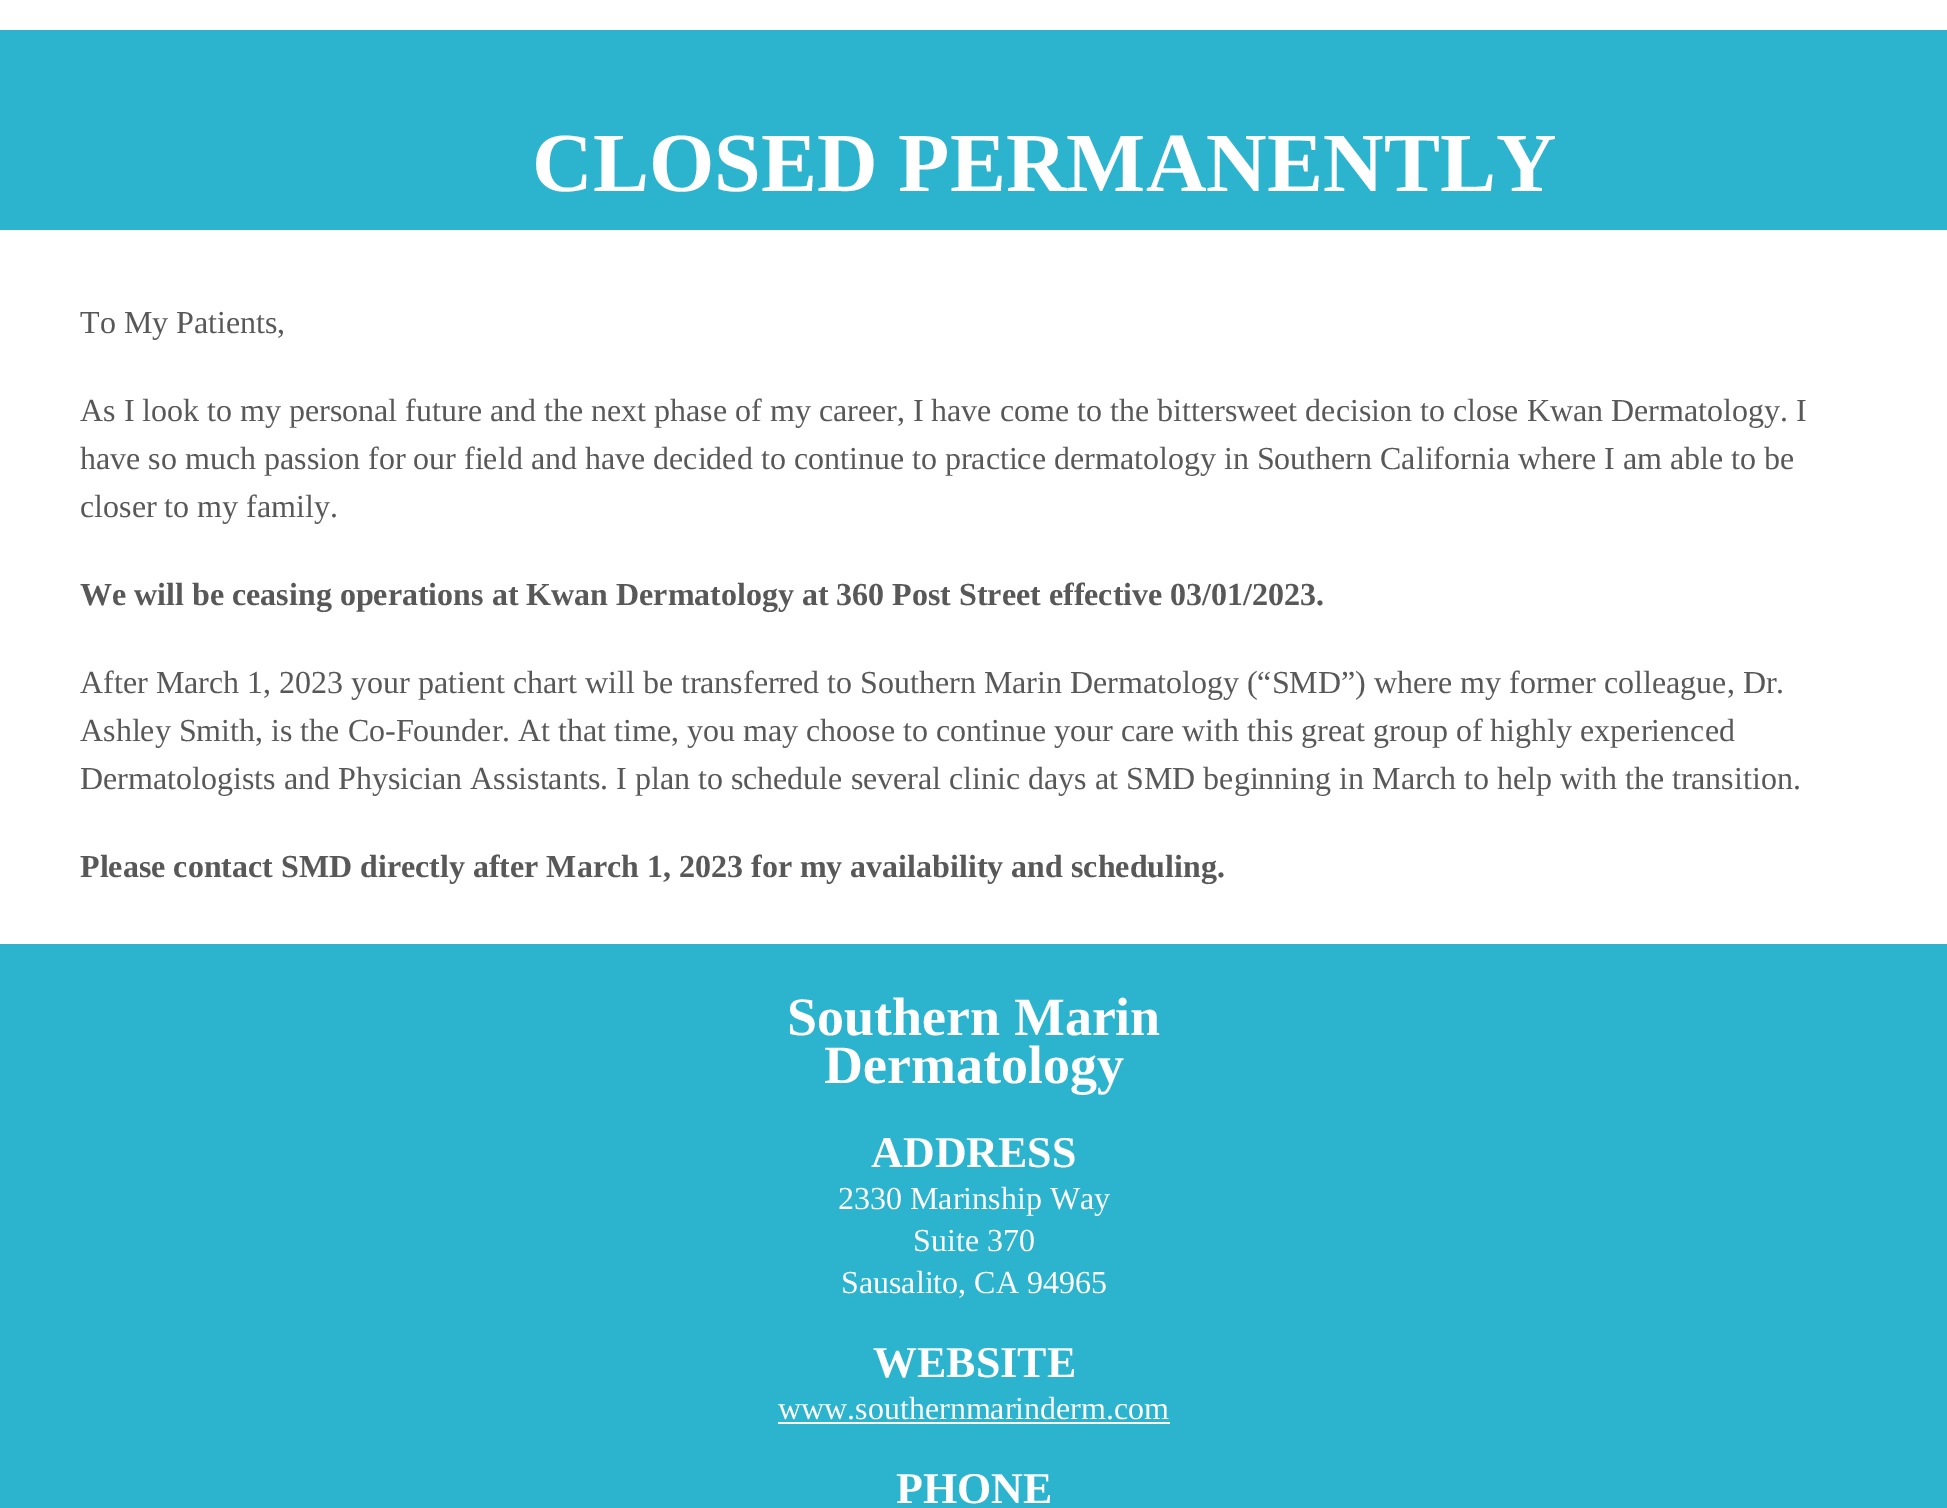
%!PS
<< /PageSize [1947 1508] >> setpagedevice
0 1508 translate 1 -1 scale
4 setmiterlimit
1 setgray
0 0 1947 1508 rectfill
0.173 0.702 0.808 setrgbcolor
0 30 1947 200 rectfill
/LiberationSerif-Bold [84 0 0 -84 0 0] selectfont
1 setgray
532 191 moveto (CLOSED PERMANENTLY) show
/LiberationSerif-Regular [32 0 0 -32 0 0] selectfont
0.345 setgray
80 333 moveto (To My Patients,) show
80 421 moveto (As I look to my personal future and the next phase of my career, I have come to the bittersweet decision to close Kwan Dermatology. I) show
80 469 moveto (have so much passion for our field and have decided to continue to practice dermatology in Southern California where I am able to be) show
80 517 moveto (closer to my family.) show
/LiberationSerif-Bold [32 0 0 -32 0 0] selectfont
80 605 moveto (We will be ceasing operations at Kwan Dermatology at 360 Post Street effective 03/01/2023.) show
/LiberationSerif-Regular [32 0 0 -32 0 0] selectfont
80 693 moveto (After March 1, 2023 your patient chart will be transferred to Southern Marin Dermatology \(“SMD”\) where my former colleague, Dr.) show
80 741 moveto (Ashley Smith, is the Co-Founder. At that time, you may choose to continue your care with this great group of highly experienced) show
80 789 moveto (Dermatologists and Physician Assistants. I plan to schedule several clinic days at SMD beginning in March to help with the transition.) show
/LiberationSerif-Bold [32 0 0 -32 0 0] selectfont
80 877 moveto (Please contact SMD directly after March 1, 2023 for my availability and scheduling.) show
0.173 0.702 0.808 setrgbcolor
0 944 1947 564 rectfill
/LiberationSerif-Bold [54 0 0 -54 0 0] selectfont
1 setgray
787 1035 moveto (Southern Marin) show
824 1083 moveto (Dermatology) show
/LiberationSerif-Bold [44 0 0 -44 0 0] selectfont
871 1167 moveto (ADDRESS) show
/LiberationSerif-Regular [32 0 0 -32 0 0] selectfont
838 1209 moveto (2330 Marinship Way) show
913 1251 moveto (Suite 370) show
841 1293 moveto (Sausalito, CA 94965) show
/LiberationSerif-Bold [44 0 0 -44 0 0] selectfont
873 1377 moveto (WEBSITE) show
/LiberationSerif-Regular [32 0 0 -32 0 0] selectfont
778 1419 moveto (www.southernmarinderm.com) show
778 1422 392 2 rectfill
/LiberationSerif-Bold [44 0 0 -44 0 0] selectfont
896 1503 moveto (PHONE) show
showpage
